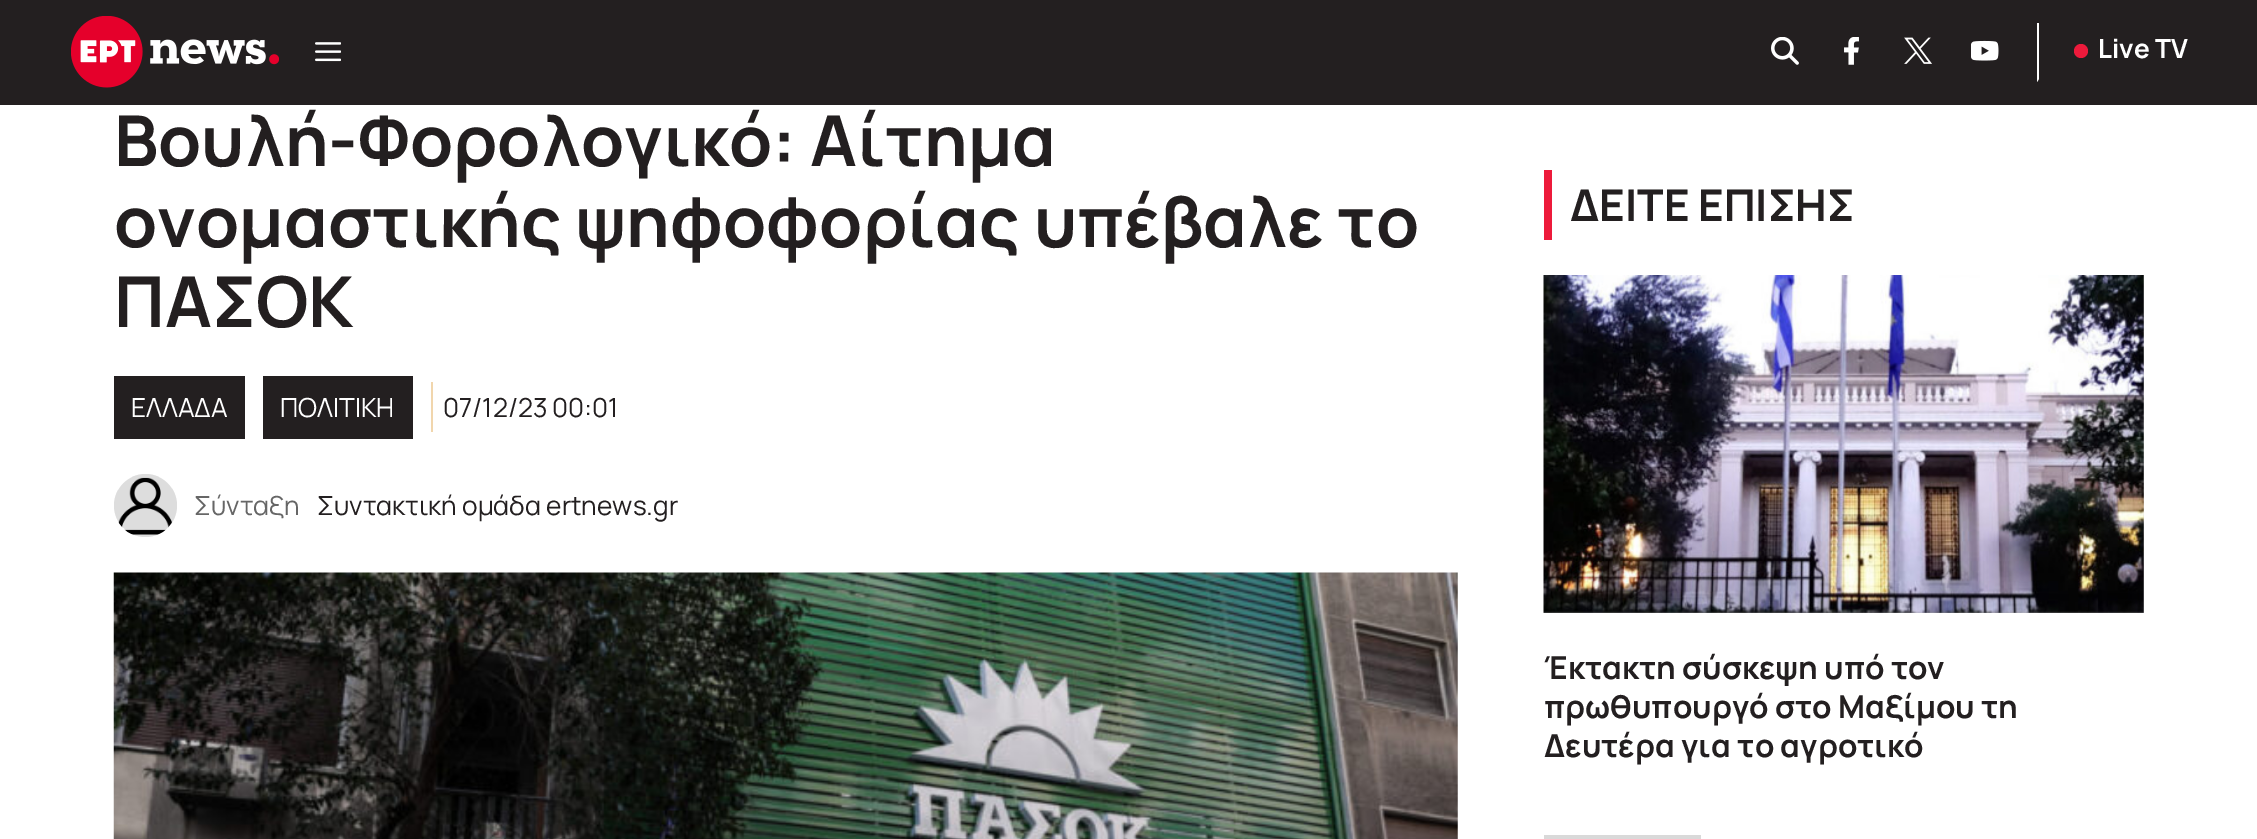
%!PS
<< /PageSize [2257 839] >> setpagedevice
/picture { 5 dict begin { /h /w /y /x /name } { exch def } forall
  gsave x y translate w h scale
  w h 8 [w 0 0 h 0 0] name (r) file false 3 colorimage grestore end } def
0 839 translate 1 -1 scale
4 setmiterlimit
1 setgray
0 0 2257 839 rectfill
0.137 0.122 0.125 setrgbcolor
0 0 2257 105 rectfill
(img1.rgb) 71 16 208 72 picture
(img2.rgb) 315 42 26 20 picture
(img3.rgb) 1771 37 28 28 picture
(img4.rgb) 1844 37 15 28 picture
(img5.rgb) 1904 37 28 27 picture
(img6.rgb) 1971 40 28 21 picture
1 setgray
newpath 2037 82 moveto 2037 23 lineto 2039 23 lineto 2039 79 lineto closepath fill
0.929 0.102 0.231 setrgbcolor
newpath 2081 51 7 0 360 arc closepath fill
/Manrope-Bold [26.25 0 0 -26.25 0 0] selectfont
1 setgray
2098 58 moveto (Live TV) show
/Manrope-Bold [70 0 0 -70 0 0] selectfont
0.137 0.122 0.125 setrgbcolor
114 166 moveto (Βουλή-Φορολογικό: Αίτημα) show
114 247 moveto (ονομαστικής ψηφοφορίας υπέβαλε το) show
114 327 moveto (ΠΑΣΟΚ) show
114 376 131 63 rectfill
/Manrope-Regular [26.25 0 0 -26.25 0 0] selectfont
1 setgray
131 417 moveto (ΕΛΛΑΔΑ) show
0.137 0.122 0.125 setrgbcolor
263 376 150 63 rectfill
1 setgray
280 417 moveto (ΠΟΛΙΤΙΚΗ) show
0.137 0.122 0.125 setrgbcolor
443 417 moveto (07/12/23 00:01) show
0.945 0.839 0.678 setrgbcolor
431 382 2 50 rectfill
0.867 setgray
newpath 145.5 505.5 31.5 0 360 arc closepath fill
(img7.rgb) 118 477 54 58 picture
0.4 setgray
194 515 moveto (Σύνταξη) show
0.137 0.122 0.125 setrgbcolor
317 515 moveto (Συντακτική ομάδα ertnews.gr) show
(img8.rgb) 113 572 1345 267 picture
0.929 0.102 0.231 setrgbcolor
1544 170 8 70 rectfill
/Manrope-Bold [43.75 0 0 -43.75 0 0] selectfont
0.137 0.122 0.125 setrgbcolor
1570 221 moveto (ΔΕΙΤΕ ΕΠΙΣΗΣ) show
0.851 setgray
1544 275 600 338 rectfill
(img9.rgb) 1543 275 601 338 picture
/Manrope-Bold [31.5 0 0 -31.5 0 0] selectfont
0.137 0.122 0.125 setrgbcolor
1544 679 moveto (Έκτακτη σύσκεψη υπό τον) show
1544 718 moveto (πρωθυπουργό στο Μαξίμου τη) show
1544 757 moveto (Δευτέρα για το αγροτικό) show
0.851 setgray
1544 835 157 4 rectfill
showpage
